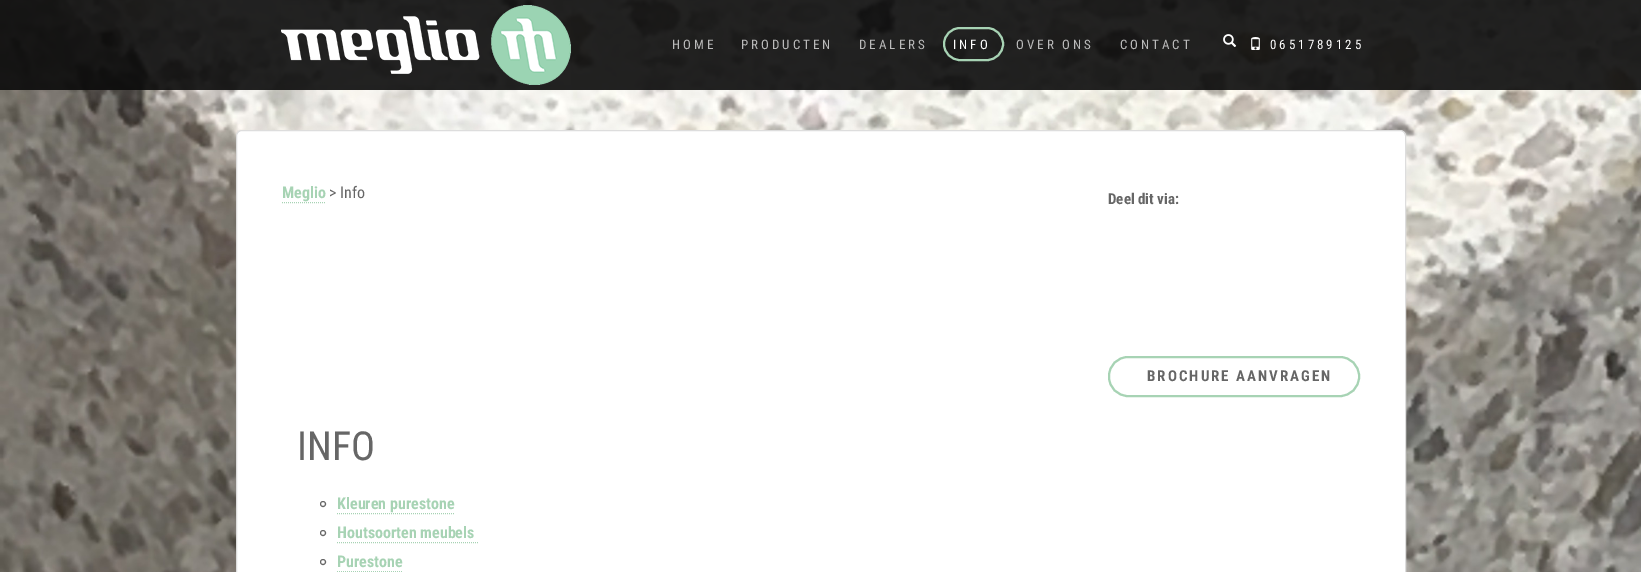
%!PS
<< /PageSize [1641 572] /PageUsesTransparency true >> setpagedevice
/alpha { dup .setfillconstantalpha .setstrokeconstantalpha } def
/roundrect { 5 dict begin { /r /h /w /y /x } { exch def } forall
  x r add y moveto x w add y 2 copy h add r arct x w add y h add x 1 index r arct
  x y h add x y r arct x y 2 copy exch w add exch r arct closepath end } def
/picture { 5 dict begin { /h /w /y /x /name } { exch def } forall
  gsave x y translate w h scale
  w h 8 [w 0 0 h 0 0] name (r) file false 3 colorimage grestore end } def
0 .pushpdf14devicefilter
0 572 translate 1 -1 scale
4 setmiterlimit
1 setgray
0 0 1641 572 rectfill
(img4.rgb) 0 0 1641 572 picture
0.9 alpha
0.039 setgray
0 0 1641 90 rectfill
1 alpha
(img1.rgb) 281 5 290 80 picture
/RobotoCondensed-Regular [13 0 0 -13 0 0] selectfont
0.733 setgray
672 49 moveto 3 0 (HOME) ashow
741 49 moveto 3 0 (PRODUCTEN) ashow
859 49 moveto 3 0 (DEALERS) ashow
0.655 0.827 0.706 setrgbcolor
2 setlinewidth
944 28 59 32 16 roundrect stroke
1 setgray
953 49 moveto 3 0 (INFO) ashow
0.733 setgray
1016 49 moveto 3 0 (OVER ONS) ashow
1120 49 moveto 3 0 (CONTACT) ashow
(img2.rgb) 1223 34 14 13 picture
(img3.rgb) 1251 37 9 13 picture
1 setgray
1270 49 moveto 3 0 (0651789125) ashow
236.5 130.5 1169 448 5.5 roundrect gsave fill grestore
0.867 setgray
1 setlinewidth
stroke
/RobotoCondensed-Bold [16 0 0 -16 0 0] selectfont
0.655 0.827 0.706 setrgbcolor
282 198 moveto (Meglio) show
[1 1] 0 setdash
newpath 282 202.5 moveto 325 202.5 lineto stroke
/RobotoCondensed-Regular [16 0 0 -16 0 0] selectfont
0.4 setgray
329 198 moveto (> Info) show
/RobotoCondensed-Bold [15 0 0 -15 0 0] selectfont
1108 204 moveto (Deel dit via:) show
0.655 0.827 0.706 setrgbcolor
2 setlinewidth
[] 0 setdash
1109 357 250 39 19 roundrect stroke
0.4 setgray
1147 381 moveto 2 0 (BROCHURE AANVRAGEN) ashow
/RobotoCondensed-Regular [40 0 0 -40 0 0] selectfont
297 460 moveto (INFO) show
1 setlinewidth
newpath 323 504 2.5 0 360 arc closepath stroke
/RobotoCondensed-Bold [16 0 0 -16 0 0] selectfont
0.655 0.827 0.706 setrgbcolor
337 509 moveto (Kleuren purestone) show
[1 1] 0 setdash
newpath 337 513.5 moveto 454 513.5 lineto stroke
0.4 setgray
[] 0 setdash
newpath 323 533 2.5 0 360 arc closepath stroke
0.655 0.827 0.706 setrgbcolor
337 538 moveto (Houtsoorten meubels) show
[1 1] 0 setdash
newpath 337 542.5 moveto 478 542.5 lineto stroke
0.4 setgray
[] 0 setdash
newpath 323 562 2.5 0 360 arc closepath stroke
0.655 0.827 0.706 setrgbcolor
337 567 moveto (Purestone) show
[1 1] 0 setdash
newpath 337 571.5 moveto 402 571.5 lineto stroke
.poppdf14devicefilter showpage
